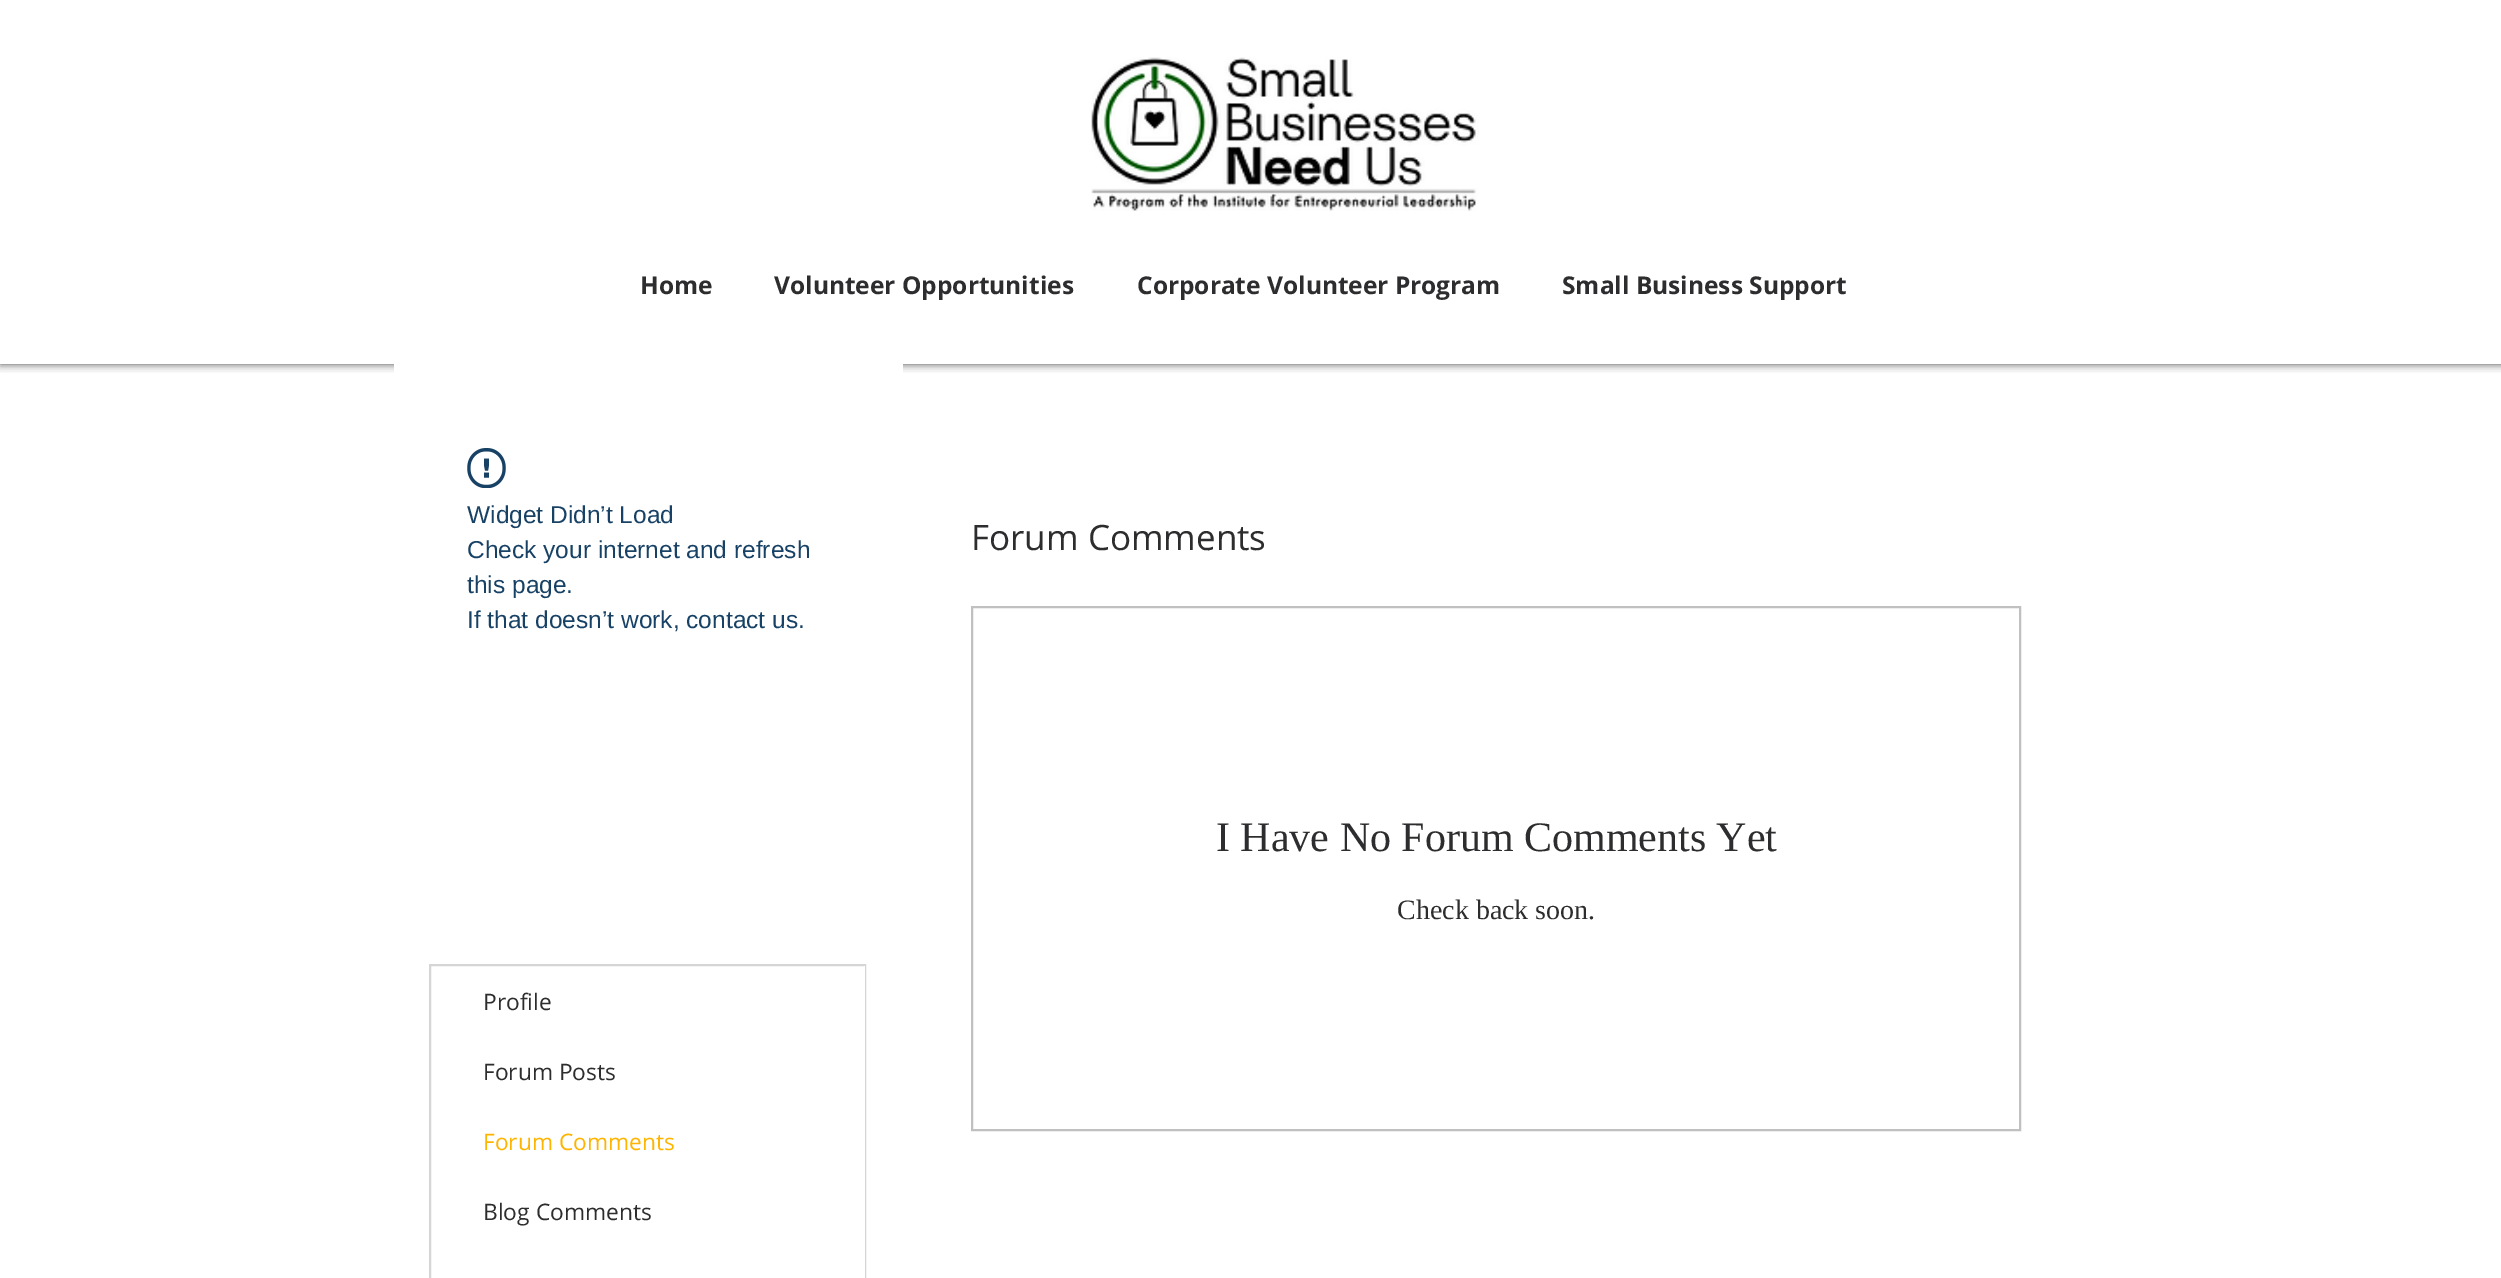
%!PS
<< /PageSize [2501 1278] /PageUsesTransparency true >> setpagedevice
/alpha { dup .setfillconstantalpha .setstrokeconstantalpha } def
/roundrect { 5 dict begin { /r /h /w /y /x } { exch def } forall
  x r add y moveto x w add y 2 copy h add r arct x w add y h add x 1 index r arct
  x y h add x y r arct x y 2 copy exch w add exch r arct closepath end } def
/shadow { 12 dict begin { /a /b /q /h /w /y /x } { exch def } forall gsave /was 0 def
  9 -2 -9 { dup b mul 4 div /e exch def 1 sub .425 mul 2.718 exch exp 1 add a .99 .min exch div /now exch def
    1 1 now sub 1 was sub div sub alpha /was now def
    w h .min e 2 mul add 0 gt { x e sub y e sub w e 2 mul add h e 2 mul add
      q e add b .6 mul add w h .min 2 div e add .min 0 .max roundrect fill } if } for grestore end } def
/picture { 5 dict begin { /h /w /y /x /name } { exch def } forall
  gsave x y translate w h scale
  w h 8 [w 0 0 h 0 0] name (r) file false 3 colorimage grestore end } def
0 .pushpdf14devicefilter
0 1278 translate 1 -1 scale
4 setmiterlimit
1 setgray
0 0 2501 1278 rectfill
gsave
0 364 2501 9 rectclip
0 setgray
0 -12 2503 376 0 4.5 0.7 shadow
grestore
(img1.rgb) 1091 57 388 154 picture
/OpenSans-Bold [24.5 0 0 -24.5 0 0] selectfont
0.176 0.176 0.184 setrgbcolor
640 294 moveto (Home) show
774 294 moveto (Volunteer Opportunities) show
1137 294 moveto (Corporate Volunteer Program) show
1562 294 moveto (Small Business Support) show
1 setgray
394 364 509 10 rectfill
(img2.rgb) 467 448 39 40 picture
/LiberationSans-Regular [24.5 0 0 -24.5 0 0] selectfont
0.09 0.255 0.396 setrgbcolor
467 523 moveto (Widget Didn’t Load) show
467 558 moveto (Check your internet and refresh) show
467 593 moveto (this page.) show
467 628 moveto (If that doesn’t work, contact us.) show
0.835 setgray
2 setlinewidth
430 965 435 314 rectstroke
1 setgray
864 966 1 312 rectfill
/OpenSans-Regular [22.75 0 0 -22.75 0 0] selectfont
0.176 0.176 0.184 setrgbcolor
483 1010 moveto (Profile) show
483 1080 moveto (Forum Posts) show
1 0.706 0 setrgbcolor
483 1150 moveto (Forum Comments) show
0.176 0.176 0.184 setrgbcolor
483 1220 moveto (Blog Comments) show
/OpenSans-Regular [35 0 0 -35 0 0] selectfont
971 550 moveto (Forum Comments) show
0.753 0.753 0.757 setrgbcolor
972 607 1048 523 rectstroke
/LiberationSerif-Regular [42 0 0 -42 0 0] selectfont
0.176 0.176 0.184 setrgbcolor
1216 851 moveto (I Have No Forum Comments Yet) show
/LiberationSerif-Regular [28 0 0 -28 0 0] selectfont
1397 919 moveto (Check back soon.) show
.poppdf14devicefilter showpage
